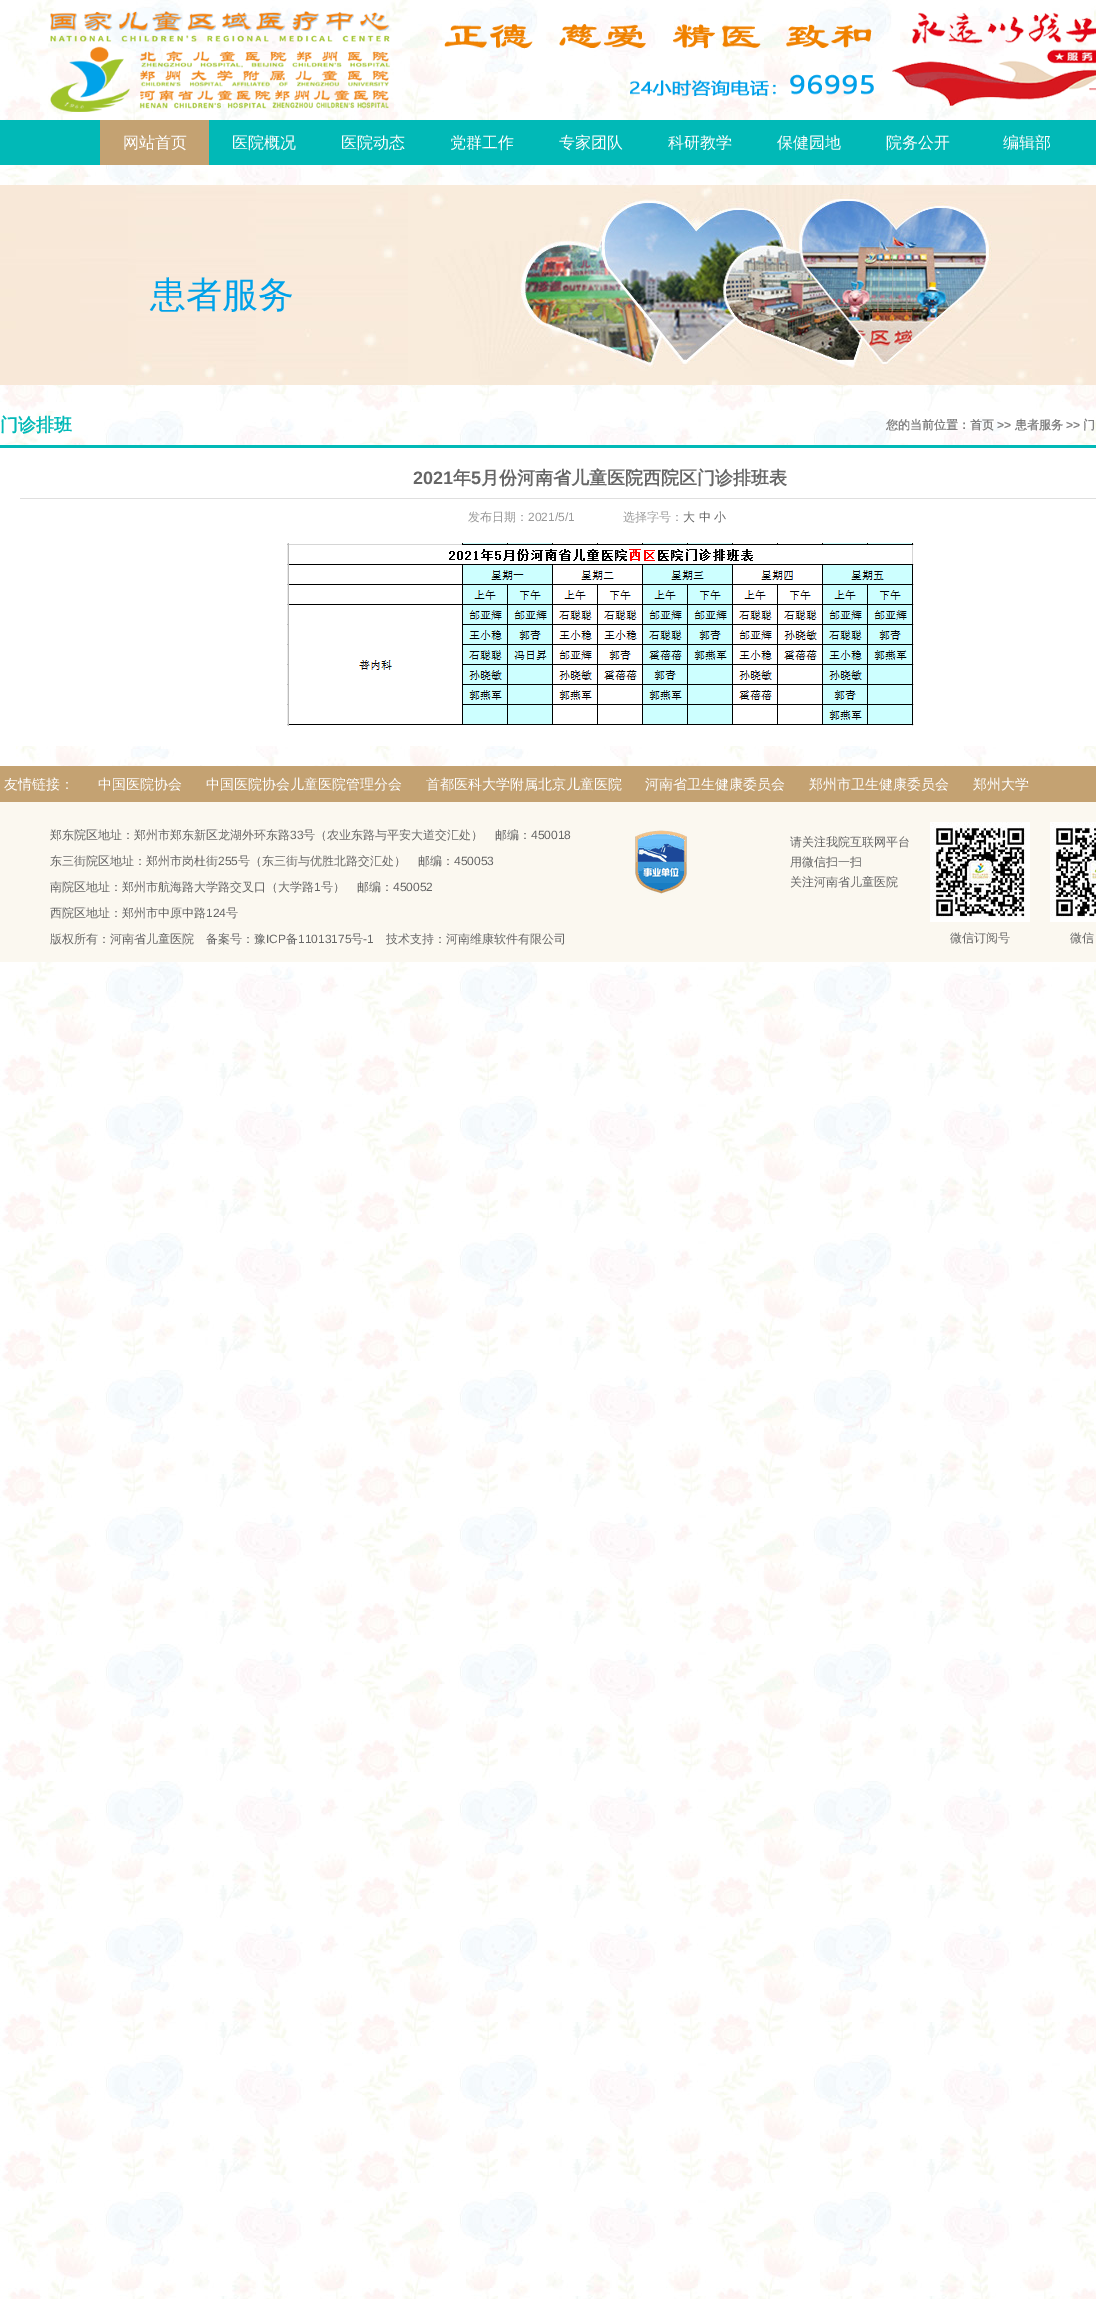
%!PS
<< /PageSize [1096 2299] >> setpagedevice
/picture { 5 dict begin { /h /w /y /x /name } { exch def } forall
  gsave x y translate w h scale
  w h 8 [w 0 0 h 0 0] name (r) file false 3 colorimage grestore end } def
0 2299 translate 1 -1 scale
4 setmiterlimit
1 setgray
0 0 1096 2299 rectfill
(img1.rgb) 0 0 1096 2299 picture
(img2.rgb) 50 11 1046 101 picture
0.004 0.725 0.718 setrgbcolor
0 120 1096 45 rectfill
0.769 0.635 0.447 setrgbcolor
100 120 109 45 rectfill
/WenQuanYiZenHei-Medium [16 0 0 -16 0 0] selectfont
1 setgray
123 148 moveto (网站首页) show
232 148 moveto (医院概况) show
341 148 moveto (医院动态) show
450 148 moveto (党群工作) show
559 148 moveto (专家团队) show
668 148 moveto (科研教学) show
777 148 moveto (保健园地) show
886 148 moveto (院务公开) show
1003 148 moveto (编辑部) show
(img3.rgb) 0 185 1096 200 picture
/WenQuanYiZenHei-Medium [36 0 0 -36 0 0] selectfont
0 0.635 0.914 setrgbcolor
150 307 moveto (患者服务) show
0.004 0.725 0.718 setrgbcolor
0 445 1096 3 rectfill
/WenQuanYiZenHei-Bold [18 0 0 -18 0 0] selectfont
0 431 moveto (门诊排班) show
/WenQuanYiZenHei-Bold [12 0 0 -12 0 0] selectfont
0.502 setgray
886 429 moveto (您的当前位置：首页) show
/LiberationSans-Bold [12 0 0 -12 0 0] selectfont
997 429 moveto (>>) show
/WenQuanYiZenHei-Bold [12 0 0 -12 0 0] selectfont
1015 429 moveto (患者服务) show
/LiberationSans-Bold [12 0 0 -12 0 0] selectfont
1066 429 moveto (>>) show
/WenQuanYiZenHei-Bold [12 0 0 -12 0 0] selectfont
1083 429 moveto (门) show
1 setgray
0 448 1096 298 rectfill
/LiberationSans-Bold [18 0 0 -18 0 0] selectfont
0.4 setgray
413 484 moveto (2021) show
/WenQuanYiZenHei-Bold [18 0 0 -18 0 0] selectfont
453 484 moveto (年) show
/LiberationSans-Bold [18 0 0 -18 0 0] selectfont
471 484 moveto (5) show
/WenQuanYiZenHei-Bold [18 0 0 -18 0 0] selectfont
481 484 moveto (月份河南省儿童医院西院区门诊排班表) show
0.875 setgray
20 498 1076 1 rectfill
/WenQuanYiZenHei-Medium [12 0 0 -12 0 0] selectfont
0.6 setgray
468 521 moveto (发布日期：) show
/LiberationSans-Regular [12 0 0 -12 0 0] selectfont
528 521 moveto (2021/5/1) show
/WenQuanYiZenHei-Medium [12 0 0 -12 0 0] selectfont
623 521 moveto (选择字号：) show
0.4 setgray
683 521 moveto (大 中 小) show
(img4.rgb) 287 543 627 183 picture
0.769 0.635 0.447 setrgbcolor
0 766 1096 36 rectfill
/WenQuanYiZenHei-Medium [14 0 0 -14 0 0] selectfont
1 setgray
4 789 moveto (友情链接：) show
98 789 moveto (中国医院协会) show
206 789 moveto (中国医院协会儿童医院管理分会) show
426 789 moveto (首都医科大学附属北京儿童医院) show
645 789 moveto (河南省卫生健康委员会) show
809 789 moveto (郑州市卫生健康委员会) show
973 789 moveto (郑州大学) show
0.984 0.973 0.941 setrgbcolor
0 802 1096 160 rectfill
/WenQuanYiZenHei-Medium [12 0 0 -12 0 0] selectfont
0.4 setgray
50 839 moveto (郑东院区地址：郑州市郑东新区龙湖外环东路) show
/LiberationSans-Regular [12 0 0 -12 0 0] selectfont
290 839 moveto (33) show
/WenQuanYiZenHei-Medium [12 0 0 -12 0 0] selectfont
303 839 moveto (号（农业东路与平安大道交汇处）　邮编：) show
/LiberationSans-Regular [12 0 0 -12 0 0] selectfont
531 839 moveto (450018) show
/WenQuanYiZenHei-Medium [12 0 0 -12 0 0] selectfont
50 865 moveto (东三街院区地址：郑州市岗杜街) show
/LiberationSans-Regular [12 0 0 -12 0 0] selectfont
218 865 moveto (255) show
/WenQuanYiZenHei-Medium [12 0 0 -12 0 0] selectfont
238 865 moveto (号（东三街与优胜北路交汇处）　邮编：) show
/LiberationSans-Regular [12 0 0 -12 0 0] selectfont
454 865 moveto (450053) show
/WenQuanYiZenHei-Medium [12 0 0 -12 0 0] selectfont
50 891 moveto (南院区地址：郑州市航海路大学路交叉口（大学路) show
/LiberationSans-Regular [12 0 0 -12 0 0] selectfont
314 891 moveto (1) show
/WenQuanYiZenHei-Medium [12 0 0 -12 0 0] selectfont
321 891 moveto (号）　邮编：) show
/LiberationSans-Regular [12 0 0 -12 0 0] selectfont
393 891 moveto (450052) show
/WenQuanYiZenHei-Medium [12 0 0 -12 0 0] selectfont
50 917 moveto (西院区地址：郑州市中原中路) show
/LiberationSans-Regular [12 0 0 -12 0 0] selectfont
206 917 moveto (124) show
/WenQuanYiZenHei-Medium [12 0 0 -12 0 0] selectfont
226 917 moveto (号) show
50 943 moveto (版权所有：河南省儿童医院　备案号：豫) show
/LiberationSans-Regular [12 0 0 -12 0 0] selectfont
266 943 moveto (ICP) show
/WenQuanYiZenHei-Medium [12 0 0 -12 0 0] selectfont
286 943 moveto (备) show
/LiberationSans-Regular [12 0 0 -12 0 0] selectfont
298 943 moveto (11013175) show
/WenQuanYiZenHei-Medium [12 0 0 -12 0 0] selectfont
351 943 moveto (号) show
/LiberationSans-Regular [12 0 0 -12 0 0] selectfont
363 943 moveto (-1) show
/WenQuanYiZenHei-Medium [12 0 0 -12 0 0] selectfont
386 943 moveto (技术支持：河南维康软件有限公司) show
(img5.rgb) 635 830 52 64 picture
790 846 moveto (请关注我院互联网平台) show
790 866 moveto (用微信扫一扫) show
790 886 moveto (关注河南省儿童医院) show
(img6.rgb) 930 822 100 100 picture
950 942 moveto (微信订阅号) show
(img7.rgb) 1050 822 46 100 picture
1070 942 moveto (微信) show
showpage
